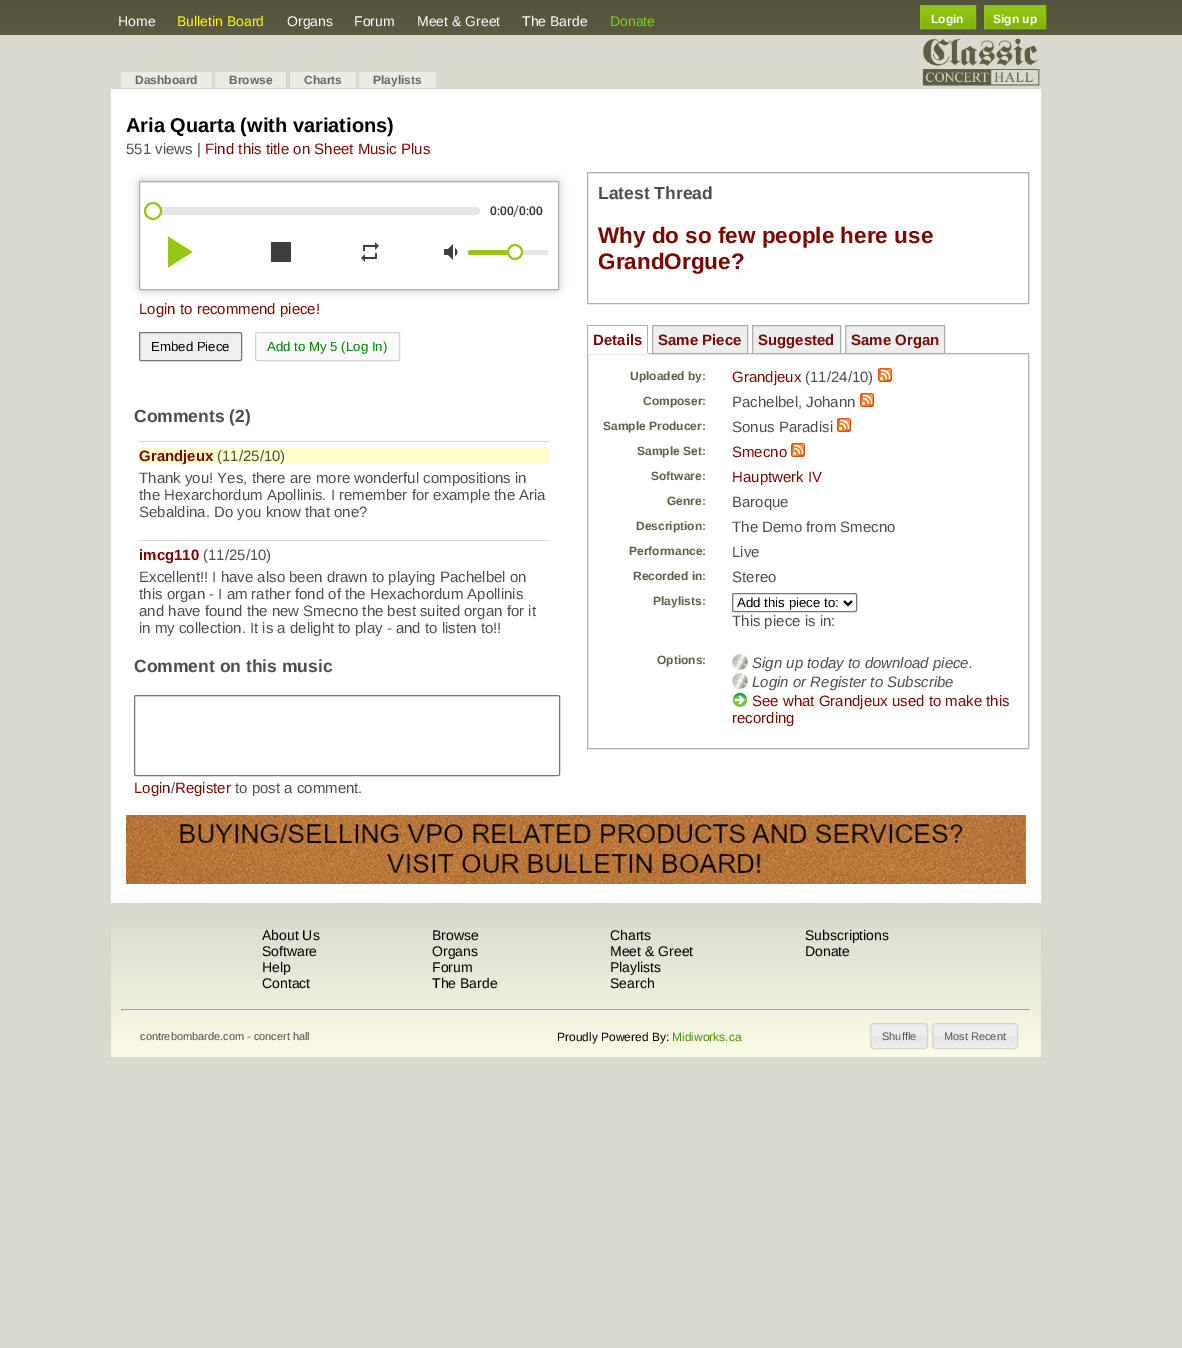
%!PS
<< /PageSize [1182 1348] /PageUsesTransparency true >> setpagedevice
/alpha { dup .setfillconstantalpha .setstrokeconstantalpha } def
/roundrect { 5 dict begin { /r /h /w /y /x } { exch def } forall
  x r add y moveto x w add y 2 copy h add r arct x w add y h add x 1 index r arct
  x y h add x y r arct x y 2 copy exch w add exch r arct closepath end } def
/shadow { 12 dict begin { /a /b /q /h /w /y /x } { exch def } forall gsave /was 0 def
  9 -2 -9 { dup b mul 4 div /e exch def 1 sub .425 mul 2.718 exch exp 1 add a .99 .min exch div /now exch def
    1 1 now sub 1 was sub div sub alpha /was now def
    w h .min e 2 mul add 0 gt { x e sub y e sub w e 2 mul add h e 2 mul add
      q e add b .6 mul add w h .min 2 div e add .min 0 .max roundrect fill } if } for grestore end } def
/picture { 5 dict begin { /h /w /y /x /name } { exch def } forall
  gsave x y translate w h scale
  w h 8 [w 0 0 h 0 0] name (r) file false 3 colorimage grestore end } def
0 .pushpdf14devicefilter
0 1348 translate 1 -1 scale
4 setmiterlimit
0.855 0.851 0.804 setrgbcolor
0 0 1182 1348 rectfill
(img1.rgb) 0 0 1182 35 picture
/LiberationSans-Regular [14 0 0 -14 0 0] selectfont
1 setgray
118 26 moveto (Home) show
0.984 1 0 setrgbcolor
177 26 moveto (Bulletin Board) show
1 setgray
287 26 moveto (Organs) show
354 26 moveto (Forum) show
417 26 moveto (Meet & Greet) show
522 26 moveto (The Barde) show
0.467 0.82 0.173 setrgbcolor
610 26 moveto (Donate) show
gsave newpath 921 6 moveto 975 6 lineto 975 28 lineto 921 28 lineto closepath clip newpath
<< /ShadingType 2 /ColorSpace /DeviceRGB /Coords [921 6 921 28] /Extend [true true] /Function << /FunctionType 3 /Domain [0 1] /Functions [<< /FunctionType 2 /Domain [0 1] /C0 [0.58 0.78 0.078] /C1 [0.58 0.78 0.078] /N 1 >> << /FunctionType 2 /Domain [0 1] /C0 [0.58 0.78 0.078] /C1 [0.506 0.702 0.016] /N 1 >>] /Bounds [0.05] /Encode [0 1 0 1] >> >> shfill grestore
0.514 0.769 0.102 setrgbcolor
920.5 5.5 55 23 rectstroke
/LiberationSans-Bold [12 0 0 -12 0 0] selectfont
1 setgray
931 23 moveto (Login) show
gsave newpath 985 6 moveto 1045 6 lineto 1045 28 lineto 985 28 lineto closepath clip newpath
<< /ShadingType 2 /ColorSpace /DeviceRGB /Coords [985 6 985 28] /Extend [true true] /Function << /FunctionType 3 /Domain [0 1] /Functions [<< /FunctionType 2 /Domain [0 1] /C0 [0.58 0.78 0.078] /C1 [0.58 0.78 0.078] /N 1 >> << /FunctionType 2 /Domain [0 1] /C0 [0.58 0.78 0.078] /C1 [0.506 0.702 0.016] /N 1 >>] /Bounds [0.05] /Encode [0 1 0 1] >> >> shfill grestore
0.514 0.769 0.102 setrgbcolor
984.5 5.5 61 23 rectstroke
1 setgray
993 23 moveto (Sign up) show
0.929 0.925 0.894 setrgbcolor
121 72 91 16 rectfill
0.4 setgray
135 84 moveto (Dashboard) show
0.929 0.925 0.894 setrgbcolor
215 72 71 16 rectfill
0.4 setgray
229 84 moveto (Browse) show
0.929 0.925 0.894 setrgbcolor
290 72 66 16 rectfill
0.4 setgray
304 84 moveto (Charts) show
0.929 0.925 0.894 setrgbcolor
359 72 77 16 rectfill
0.4 setgray
373 84 moveto (Playlists) show
(img2.rgb) 922 38 118 48 picture
1 setgray
111 89 930 814 rectfill
/LiberationSans-Bold [20 0 0 -20 0 0] selectfont
0 setgray
126 132 moveto (Aria Quarta \(with variations\)) show
/LiberationSans-Regular [15 0 0 -15 0 0] selectfont
0.302 setgray
126 154 moveto (551 views |) show
0.475 0.027 0.008 setrgbcolor
205 154 moveto (Find this title on Sheet Music Plus) show
0.757 setgray
139 181 420 109 2 4.5 1 shadow
1 setgray
newpath 139.5 181.5 moveto 558.5 181.5 lineto 558.5 289.5 lineto 139.5 289.5 lineto closepath gsave fill grestore
0.678 setgray
stroke
0.902 setgray
155 207 325 8 4 roundrect fill
1 setgray
newpath 153 211 8 0 360 arc closepath gsave fill grestore
0.58 0.78 0.078 setrgbcolor
2 setlinewidth
stroke
/Roboto-Medium [12 0 0 -12 0 0] selectfont
0.2 setgray
490 215 moveto (0:00) show
/Roboto-Regular [15 0 0 -15 0 0] selectfont
0.302 setgray
513 216 moveto (/) show
/Roboto-Medium [12 0 0 -12 0 0] selectfont
0.2 setgray
519 215 moveto (0:00) show
0.58 0.78 0.078 setrgbcolor
newpath 168 236.5 moveto 192.5 252 lineto 168 267.5 lineto closepath fill
0.243 setgray
271 242 20 20 rectfill
(img3.rgb) 361 242 18 20 picture
(img4.rgb) 444 244 14 16 picture
0.902 setgray
468 250 80 5 2.5 roundrect fill
0.58 0.78 0.078 setrgbcolor
newpath 470.5 250 moveto 516 250 lineto 516 255 lineto 470.5 255 lineto 469 255 468 254 468 252.5 curveto 468 251 469 250 470.5 250 curveto closepath fill
1 setgray
newpath 515 252 7 0 360 arc closepath gsave fill grestore
0.58 0.78 0.078 setrgbcolor
stroke
/LiberationSans-Regular [15 0 0 -15 0 0] selectfont
0.475 0.027 0.008 setrgbcolor
139 314 moveto (Login to recommend piece!) show
0.937 setgray
139.5 332.5 102 28 1.5 roundrect gsave fill grestore
0.463 setgray
1 setlinewidth
stroke
/LiberationSans-Regular [13.25 0 0 -13.25 0 0] selectfont
0 setgray
151 351 moveto (Embed Piece) show
0.98 setgray
255.5 332.5 144 28 1.5 roundrect gsave fill grestore
0.824 setgray
stroke
0 0.502 0 setrgbcolor
267 351 moveto (Add to My 5 \(Log In\)) show
/LiberationSans-Bold [17.5 0 0 -17.5 0 0] selectfont
0.302 setgray
134 422 moveto (Comments \(2\)) show
0.855 0.851 0.804 setrgbcolor
139 441 410 1 rectfill
1 1 0.8 setrgbcolor
139 447 410 17 rectfill
/LiberationSans-Bold [15 0 0 -15 0 0] selectfont
0.475 0.027 0.008 setrgbcolor
139 461 moveto (Grandjeux) show
/LiberationSans-Regular [15 0 0 -15 0 0] selectfont
0.302 setgray
217 461 moveto (\(11/25/10\)) show
139 483 moveto (Thank you! Yes, there are more wonderful compositions in) show
139 500 moveto (the Hexarchordum Apollinis. I remember for example the Aria) show
139 517 moveto (Sebaldina. Do you know that one?) show
0.855 0.851 0.804 setrgbcolor
139 540 410 1 rectfill
/LiberationSans-Bold [15 0 0 -15 0 0] selectfont
0.475 0.027 0.008 setrgbcolor
139 560 moveto (imcg110) show
/LiberationSans-Regular [15 0 0 -15 0 0] selectfont
0.302 setgray
203 560 moveto (\(11/25/10\)) show
139 582 moveto (Excellent!! I have also been drawn to playing Pachelbel on) show
139 599 moveto (this organ - I am rather fond of the Hexachordum Apollinis) show
139 616 moveto (and have found the new Smecno the best suited organ for it) show
139 633 moveto (in my collection. It is a delight to play - and to listen to!!) show
/LiberationSans-Bold [17.5 0 0 -17.5 0 0] selectfont
134 672 moveto (Comment on this music) show
0.463 setgray
134.5 695.5 425 80 1.5 roundrect stroke
/LiberationSans-Regular [15 0 0 -15 0 0] selectfont
0.475 0.027 0.008 setrgbcolor
134 793 moveto (Login Register) show
0.302 setgray
171 793 moveto (/) show
235 793 moveto (to post a comment.) show
0.678 setgray
587.5 172.5 441 131 rectstroke
/LiberationSans-Bold [17.5 0 0 -17.5 0 0] selectfont
0.302 setgray
598 199 moveto (Latest Thread) show
/LiberationSans-Bold [22.5 0 0 -22.5 0 0] selectfont
0.475 0.027 0.008 setrgbcolor
598 243 moveto (Why do so few people here use) show
598 269 moveto (GrandOrgue?) show
/LiberationSans-Bold [15 0 0 -15 0 0] selectfont
593 345 moveto (Details) show
0.686 setgray
587 325 61 1 rectfill
587.5 353.5 441 395 rectstroke
647 325 1 29 rectfill
1 setgray
587 353 61 1 rectfill
0.686 setgray
587 325 1 29 rectfill
0.933 setgray
newpath 652.5 325.5 moveto 747.5 325.5 lineto 747.5 353.5 lineto 652.5 353.5 lineto closepath gsave fill grestore
0.686 setgray
stroke
0.475 0.027 0.008 setrgbcolor
658 345 moveto (Same Piece) show
0.933 setgray
newpath 752.5 325.5 moveto 840.5 325.5 lineto 840.5 353.5 lineto 752.5 353.5 lineto closepath gsave fill grestore
0.686 setgray
stroke
0.475 0.027 0.008 setrgbcolor
758 345 moveto (Suggested) show
0.933 setgray
newpath 845.5 325.5 moveto 944.5 325.5 lineto 944.5 353.5 lineto 845.5 353.5 lineto closepath gsave fill grestore
0.686 setgray
stroke
0.475 0.027 0.008 setrgbcolor
851 345 moveto (Same Organ) show
/LiberationSans-Bold [12 0 0 -12 0 0] selectfont
0.38 0.373 0.275 setrgbcolor
630 380 moveto (Uploaded by:) show
/LiberationSans-Regular [15 0 0 -15 0 0] selectfont
0.475 0.027 0.008 setrgbcolor
732 382 moveto (Grandjeux) show
0.302 setgray
805 382 moveto (\(11/24/10\)) show
(img5.rgb) 878 368 14 14 picture
/LiberationSans-Bold [12 0 0 -12 0 0] selectfont
0.38 0.373 0.275 setrgbcolor
643 405 moveto (Composer:) show
/LiberationSans-Regular [15 0 0 -15 0 0] selectfont
0.302 setgray
732 407 moveto (Pachelbel, Johann) show
(img5.rgb) 860 393 14 14 picture
/LiberationSans-Bold [12 0 0 -12 0 0] selectfont
0.38 0.373 0.275 setrgbcolor
603 430 moveto (Sample Producer:) show
/LiberationSans-Regular [15 0 0 -15 0 0] selectfont
0.302 setgray
732 432 moveto (Sonus Paradisi) show
(img5.rgb) 837 418 14 14 picture
/LiberationSans-Bold [12 0 0 -12 0 0] selectfont
0.38 0.373 0.275 setrgbcolor
637 455 moveto (Sample Set:) show
/LiberationSans-Regular [15 0 0 -15 0 0] selectfont
0.475 0.027 0.008 setrgbcolor
732 457 moveto (Smecno) show
(img5.rgb) 791 443 14 14 picture
/LiberationSans-Bold [12 0 0 -12 0 0] selectfont
0.38 0.373 0.275 setrgbcolor
651 480 moveto (Software:) show
/LiberationSans-Regular [15 0 0 -15 0 0] selectfont
0.475 0.027 0.008 setrgbcolor
732 482 moveto (Hauptwerk IV) show
/LiberationSans-Bold [12 0 0 -12 0 0] selectfont
0.38 0.373 0.275 setrgbcolor
667 505 moveto (Genre:) show
/LiberationSans-Regular [15 0 0 -15 0 0] selectfont
0.302 setgray
732 507 moveto (Baroque) show
/LiberationSans-Bold [12 0 0 -12 0 0] selectfont
0.38 0.373 0.275 setrgbcolor
636 530 moveto (Description:) show
/LiberationSans-Regular [15 0 0 -15 0 0] selectfont
0.302 setgray
732 532 moveto (The Demo from Smecno) show
/LiberationSans-Bold [12 0 0 -12 0 0] selectfont
0.38 0.373 0.275 setrgbcolor
629 555 moveto (Performance:) show
/LiberationSans-Regular [15 0 0 -15 0 0] selectfont
0.302 setgray
732 557 moveto (Live) show
/LiberationSans-Bold [12 0 0 -12 0 0] selectfont
0.38 0.373 0.275 setrgbcolor
633 580 moveto (Recorded in:) show
/LiberationSans-Regular [15 0 0 -15 0 0] selectfont
0.302 setgray
732 582 moveto (Stereo) show
/LiberationSans-Bold [12 0 0 -12 0 0] selectfont
0.38 0.373 0.275 setrgbcolor
653 605 moveto (Playlists:) show
0.463 setgray
732.5 593.5 124 18 1.5 roundrect stroke
0 setgray
2 setlinewidth
newpath 844 601 moveto 848 605 lineto 852 601 lineto stroke
/LiberationSans-Regular [13.25 0 0 -13.25 0 0] selectfont
737 607 moveto (Add this piece to:) show
/LiberationSans-Regular [15 0 0 -15 0 0] selectfont
0.302 setgray
732 626 moveto (This piece is in:) show
/LiberationSans-Bold [12 0 0 -12 0 0] selectfont
0.38 0.373 0.275 setrgbcolor
657 664 moveto (Options:) show
(img6.rgb) 732 654 16 16 picture
/LiberationSans-Italic [15 0 0 -15 0 0] selectfont
0.302 setgray
752 668 moveto (Sign up today to download piece.) show
(img6.rgb) 732 673 16 16 picture
752 687 moveto (Login or Register to Subscribe) show
(img7.rgb) 732 692 16 16 picture
/LiberationSans-Regular [15 0 0 -15 0 0] selectfont
0.475 0.027 0.008 setrgbcolor
752 706 moveto (See what Grandjeux used to make this) show
732 723 moveto (recording) show
(img8.rgb) 126 815 900 69 picture
gsave newpath 111 915 moveto 1041 915 lineto 1041 1057 lineto 111 1057 lineto closepath clip newpath
<< /ShadingType 2 /ColorSpace /DeviceRGB /Coords [576 908 576 1057] /Extend [true true] /Function << /FunctionType 2 /Domain [0 1] /C0 [0.847 0.855 0.8] /C1 [0.988 0.984 0.906] /N 1 >> >> shfill grestore
/LiberationSans-Regular [14 0 0 -14 0 0] selectfont
0 setgray
262 940 moveto (About Us) show
262 956 moveto (Software) show
262 972 moveto (Help) show
262 988 moveto (Contact) show
432 940 moveto (Browse) show
432 956 moveto (Organs) show
432 972 moveto (Forum) show
432 988 moveto (The Barde) show
610 940 moveto (Charts) show
610 956 moveto (Meet & Greet) show
610 972 moveto (Playlists) show
610 988 moveto (Search) show
805 940 moveto (Subscriptions) show
805 956 moveto (Donate) show
0.624 setgray
121 1009 910 1 rectfill
0.933 setgray
1030 1009 1 2 rectfill
121 1010 910 1 rectfill
0.624 setgray
121 1009 1 2 rectfill
/LiberationSans-Regular [11 0 0 -11 0 0] selectfont
0.302 setgray
140 1040 moveto (contrebombarde.com - concert hall) show
/LiberationSans-Regular [12 0 0 -12 0 0] selectfont
0 setgray
557 1041 moveto (Proudly Powered By:) show
0.282 0.545 0 setrgbcolor
672 1041 moveto (Midiworks.ca) show
(img9.rgb) 870 1023 58 26 picture
0.827 setgray
1 setlinewidth
870.5 1023.5 57 25 3.5 roundrect stroke
/LiberationSans-Regular [11 0 0 -11 0 0] selectfont
0.333 setgray
882 1040 moveto (Shuffle) show
(img10.rgb) 932 1023 86 26 picture
0.827 setgray
932.5 1023.5 85 25 3.5 roundrect stroke
0.333 setgray
944 1040 moveto (Most Recent) show
.poppdf14devicefilter showpage
